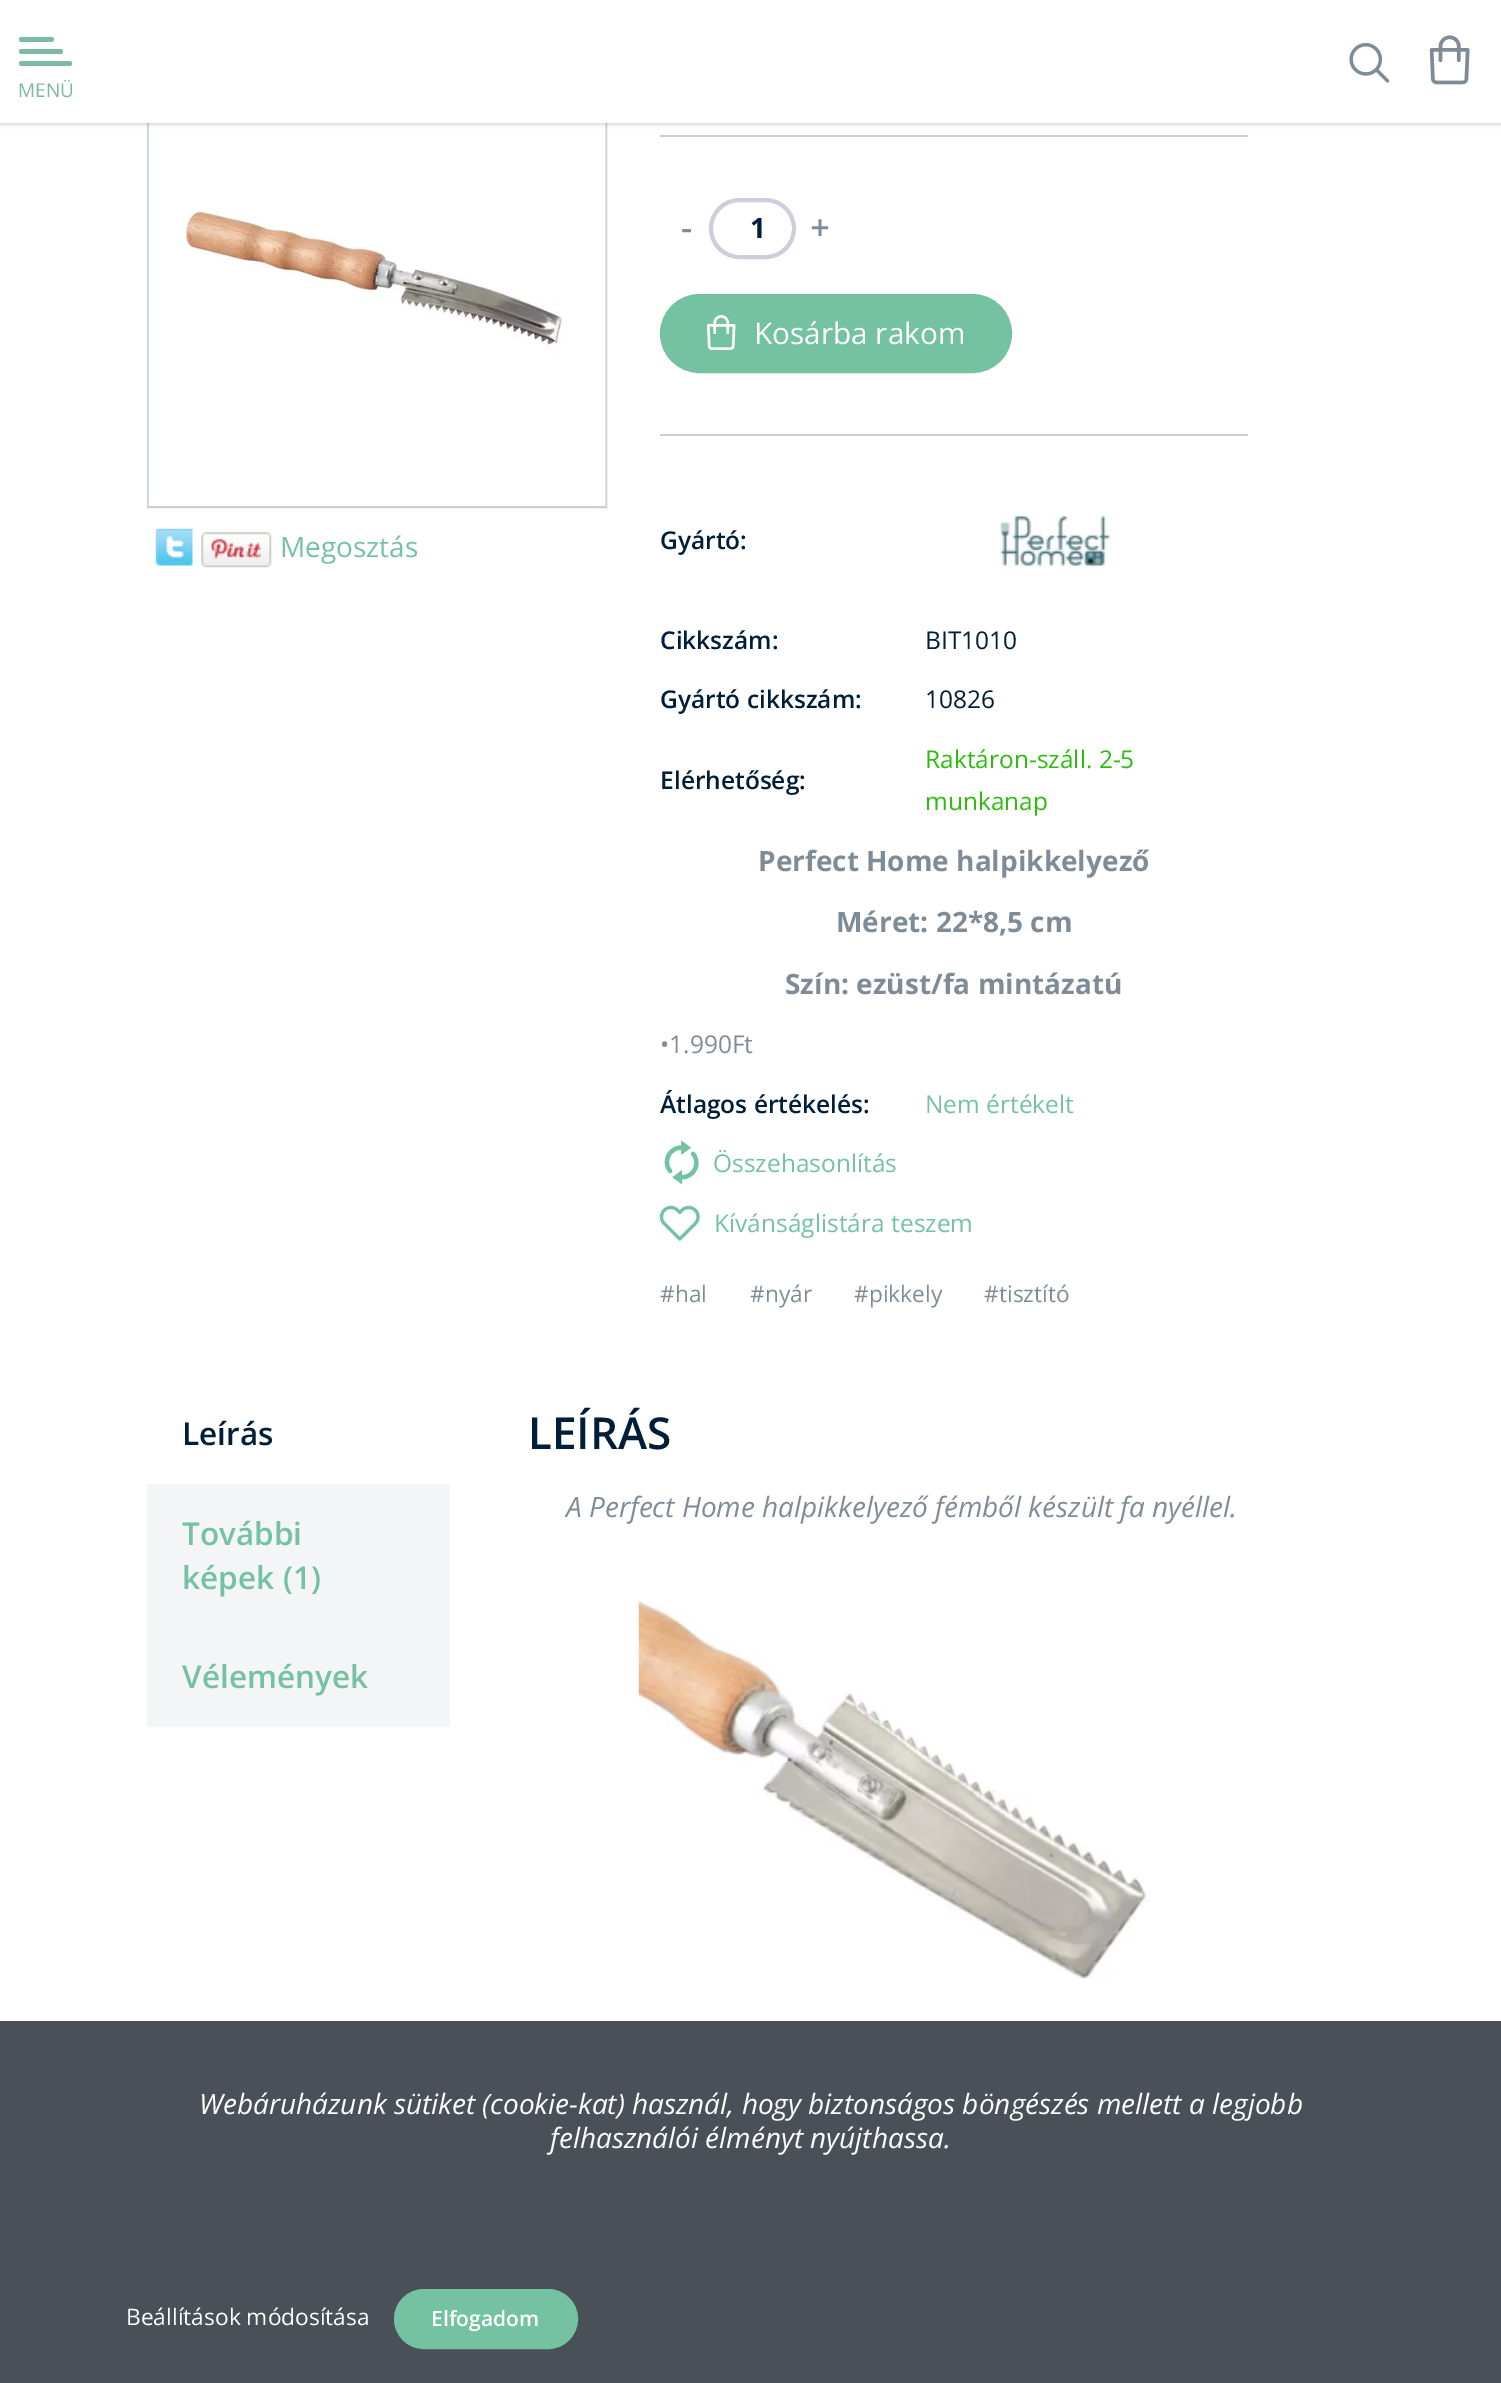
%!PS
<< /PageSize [1501 2383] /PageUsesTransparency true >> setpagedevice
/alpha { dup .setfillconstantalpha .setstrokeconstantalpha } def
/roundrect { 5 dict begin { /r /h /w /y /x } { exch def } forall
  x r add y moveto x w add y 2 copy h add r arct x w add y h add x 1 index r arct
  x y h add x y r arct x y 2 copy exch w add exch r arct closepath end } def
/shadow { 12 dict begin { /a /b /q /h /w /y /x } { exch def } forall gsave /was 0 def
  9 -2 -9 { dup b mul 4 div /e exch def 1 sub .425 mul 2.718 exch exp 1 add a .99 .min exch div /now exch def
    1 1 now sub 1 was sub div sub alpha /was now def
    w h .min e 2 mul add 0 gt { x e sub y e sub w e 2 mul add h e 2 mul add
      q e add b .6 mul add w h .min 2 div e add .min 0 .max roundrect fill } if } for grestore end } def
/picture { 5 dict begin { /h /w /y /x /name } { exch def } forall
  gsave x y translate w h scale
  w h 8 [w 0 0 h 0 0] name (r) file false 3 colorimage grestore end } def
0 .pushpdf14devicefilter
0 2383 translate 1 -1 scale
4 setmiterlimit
1 setgray
0 0 1501 2383 rectfill
0.792 0.812 0.851 setrgbcolor
2 setlinewidth
148 48 458 459 rectstroke
(img3.rgb) 148 123 458 383 picture
0 setgray
0 2 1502 122 0 2.5 0.2 shadow
1 setgray
0 0 1501 123 rectfill
(img1.rgb) 1349 42 41 41 picture
(img2.rgb) 1429 35 41 50 picture
0.49 0.729 0.631 setrgbcolor
19 61 53 5 2.5 roundrect fill
19 37 35 5 2.5 roundrect fill
19 49 44 5 2.5 roundrect fill
/OpenSans-Regular [19 0 0 -19 0 0] selectfont
18 97 moveto (MENÜ) show
(img4.rgb) 155 528 38 38 picture
(img5.rgb) 201 532 71 36 picture
/OpenSans-Regular [28 0 0 -28 0 0] selectfont
0.459 0.761 0.635 setrgbcolor
280 557 moveto (Megosztás) show
0.792 0.812 0.851 setrgbcolor
660 135 588 2 rectfill
660 434 588 2 rectfill
/OpenSans-SemiBold [35 0 0 -35 0 0] selectfont
0.498 0.549 0.592 setrgbcolor
681 240 moveto (-) show
0.792 0.812 0.851 setrgbcolor
4 setlinewidth
711 200 83 57 28.5 roundrect stroke
/OpenSans-Bold [28 0 0 -28 0 0] selectfont
0 0.118 0.22 setrgbcolor
750 238 moveto (1) show
/OpenSans-SemiBold [35 0 0 -35 0 0] selectfont
0.498 0.549 0.592 setrgbcolor
810 240 moveto (+) show
0.459 0.761 0.635 setrgbcolor
662 296 348 75 37.5 roundrect gsave fill grestore
stroke
(img6.rgb) 707 315 29 35 picture
/OpenSans-Regular [29.75 0 0 -29.75 0 0] selectfont
1 setgray
754 344 moveto (Kosárba rakom) show
/OpenSans-SemiBold [24.5 0 0 -24.5 0 0] selectfont
0 0.118 0.22 setrgbcolor
660 549 moveto (Gyártó:) show
(img7.rgb) 1000 513 111 57 picture
660 649 moveto (Cikkszám:) show
/OpenSans-Regular [24.5 0 0 -24.5 0 0] selectfont
925 649 moveto (BIT1010) show
/OpenSans-SemiBold [24.5 0 0 -24.5 0 0] selectfont
660 708 moveto (Gyártó cikkszám:) show
/OpenSans-Regular [24.5 0 0 -24.5 0 0] selectfont
925 708 moveto (10826) show
/OpenSans-SemiBold [24.5 0 0 -24.5 0 0] selectfont
660 789 moveto (Elérhetőség:) show
/OpenSans-Regular [24.5 0 0 -24.5 0 0] selectfont
0.173 0.741 0.059 setrgbcolor
925 768 moveto (Raktáron-száll. 2-5) show
925 810 moveto (munkanap) show
/OpenSans-Bold [28 0 0 -28 0 0] selectfont
0.498 0.549 0.592 setrgbcolor
758 871 moveto (Perfect Home halpikkelyező) show
836 932 moveto (Méret: 22*8,5 cm) show
785 994 moveto (Szín: ezüst/fa mintázatú) show
/OpenSans-Regular [24.5 0 0 -24.5 0 0] selectfont
660 1053 moveto (•1.990Ft) show
/OpenSans-SemiBold [24.5 0 0 -24.5 0 0] selectfont
0 0.118 0.22 setrgbcolor
660 1113 moveto (Átlagos értékelés:) show
/OpenSans-Regular [24.5 0 0 -24.5 0 0] selectfont
0.459 0.761 0.635 setrgbcolor
925 1113 moveto (Nem értékelt) show
(img8.rgb) 664 1140 35 45 picture
713 1172 moveto (Összehasonlítás) show
(img9.rgb) 659 1205 41 36 picture
714 1232 moveto (Kívánságlistára teszem) show
/OpenSans-Regular [22.75 0 0 -22.75 0 0] selectfont
0.498 0.549 0.592 setrgbcolor
660 1302 moveto (#hal) show
750 1302 moveto (#nyár) show
854 1302 moveto (#pikkely) show
984 1302 moveto (#tisztító) show
0.953 0.961 0.969 setrgbcolor
147 1484 303 243 rectfill
/OpenSans-SemiBold [31.5 0 0 -31.5 0 0] selectfont
0 0.118 0.22 setrgbcolor
182 1445 moveto (Leírás) show
0.459 0.761 0.635 setrgbcolor
182 1545 moveto (További) show
182 1589 moveto (képek) show
283 1589 moveto (\(1\)) show
182 1688 moveto (Vélemények) show
/OpenSans-SemiBold [44 0 0 -44 0 0] selectfont
0 0.118 0.22 setrgbcolor
528 1449 moveto (LEÍRÁS) show
/OpenSans-Italic [28 0 0 -28 0 0] selectfont
0.498 0.549 0.592 setrgbcolor
566 1517 moveto (A Perfect Home halpikkelyező fémből készült fa nyéllel.) show
(img10.rgb) 638 1601 512 378 picture
0.286 0.314 0.341 setrgbcolor
0 2021 1501 362 rectfill
1 setgray
199 2114 moveto (Webáruházunk sütiket \(cookie-kat\) használ, hogy biztonságos böngészés mellett a legjobb) show
550 2148 moveto (felhasználói élményt nyújthassa.) show
/OpenSans-Regular [22.75 0 0 -22.75 0 0] selectfont
126 2325 moveto (Beállítások módosítása) show
0.459 0.761 0.635 setrgbcolor
396 2291 180 56 28 roundrect gsave fill grestore
stroke
/OpenSans-SemiBold [21 0 0 -21 0 0] selectfont
1 setgray
431 2326 moveto (Elfogadom) show
.poppdf14devicefilter showpage
